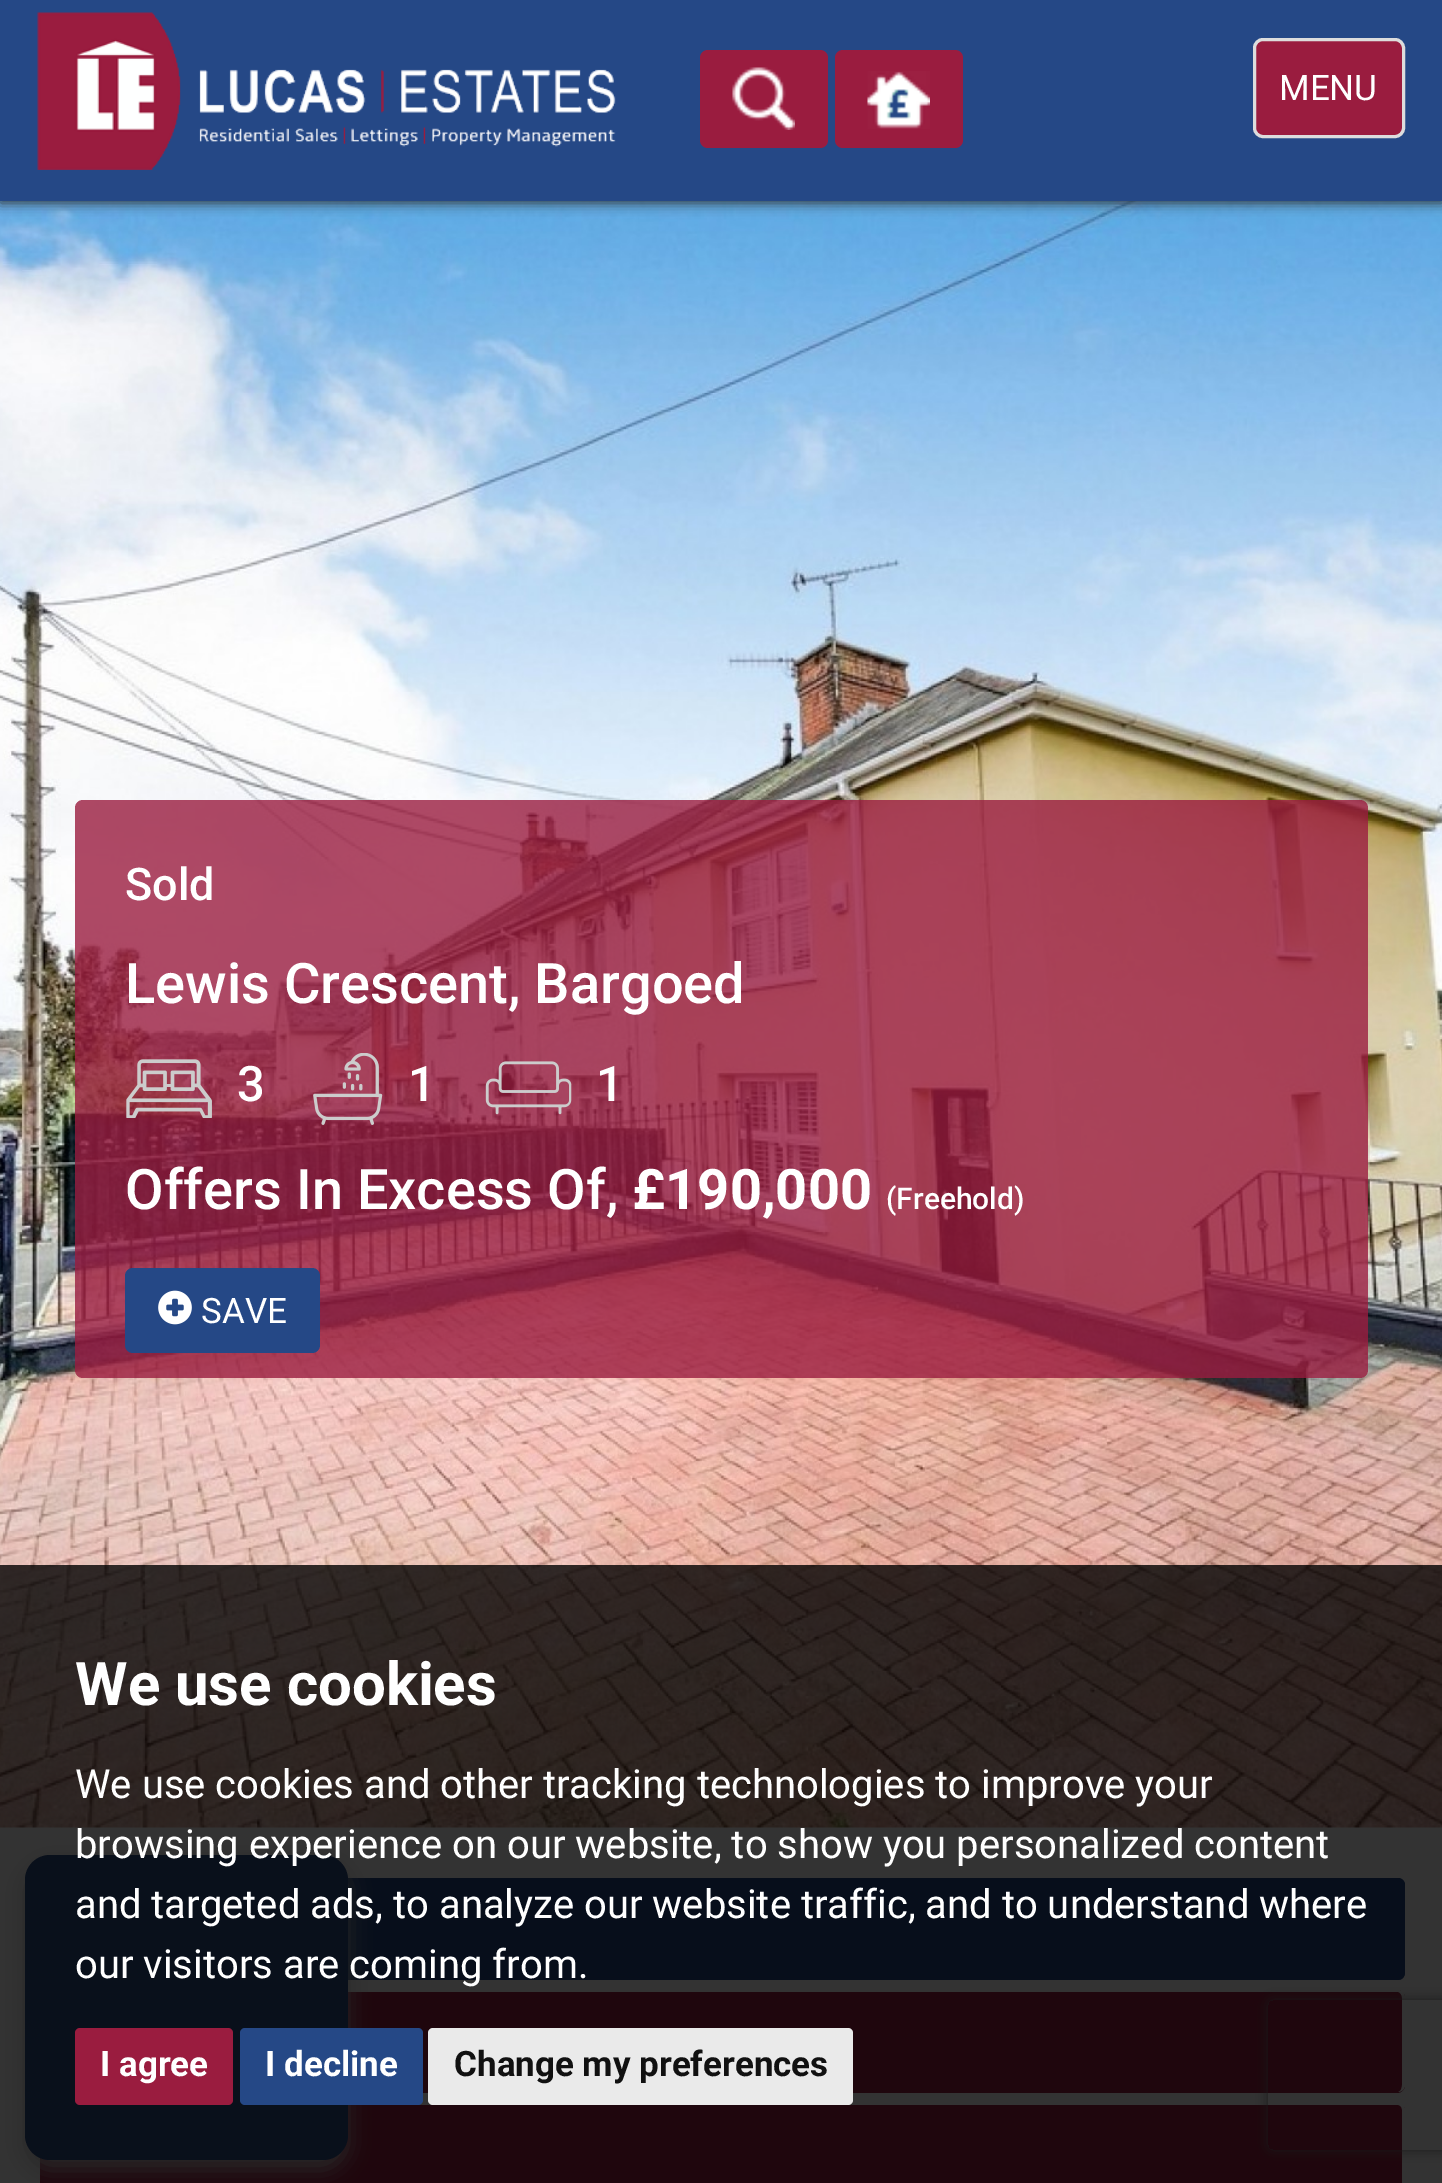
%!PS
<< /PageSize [1442 2183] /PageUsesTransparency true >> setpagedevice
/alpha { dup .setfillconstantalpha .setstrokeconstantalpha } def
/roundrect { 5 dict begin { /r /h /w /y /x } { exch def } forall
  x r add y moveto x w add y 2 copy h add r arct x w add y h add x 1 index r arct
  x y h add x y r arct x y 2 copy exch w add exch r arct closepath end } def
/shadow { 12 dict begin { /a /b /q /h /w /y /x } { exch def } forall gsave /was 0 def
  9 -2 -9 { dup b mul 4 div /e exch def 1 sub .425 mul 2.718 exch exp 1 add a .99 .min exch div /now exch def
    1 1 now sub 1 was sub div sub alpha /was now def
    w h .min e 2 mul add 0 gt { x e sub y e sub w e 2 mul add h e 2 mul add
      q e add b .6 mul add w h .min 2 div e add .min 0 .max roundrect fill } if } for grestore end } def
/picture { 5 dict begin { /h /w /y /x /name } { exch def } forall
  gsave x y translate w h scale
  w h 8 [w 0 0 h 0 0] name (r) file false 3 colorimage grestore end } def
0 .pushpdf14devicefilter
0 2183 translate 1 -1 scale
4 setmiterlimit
1 setgray
0 0 1442 2183 rectfill
(img4.rgb) 0 201 1442 1627 picture
0.2 setgray
0 3 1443 200 0 6 1 shadow
0.145 0.282 0.525 setrgbcolor
0 0 1442 201 rectfill
0.604 0.11 0.247 setrgbcolor
700 50 128 98 8 roundrect fill
(img1.rgb) 732 67 63 63 picture
835 50 128 98 8 roundrect fill
(img2.rgb) 867 71 63 58 picture
(img3.rgb) 37 12 579 158 picture
1254.5 39.5 149 97 8.5 roundrect gsave fill grestore
0.867 setgray
3 setlinewidth
stroke
/Roboto-Regular [35 0 0 -35 0 0] selectfont
1 setgray
1279 100 moveto (MENU) show
0.8 alpha
0.604 0.11 0.247 setrgbcolor
75 800 1293 578 8 roundrect fill
/Roboto-Medium [45 0 0 -45 0 0] selectfont
1 alpha
1 setgray
125 900 moveto (Sold) show
/Roboto-Medium [56 0 0 -56 0 0] selectfont
125 1003 moveto (Lewis Crescent, Bargoed) show
(img5.rgb) 126 1059 86 59 picture
/Roboto-Medium [49 0 0 -49 0 0] selectfont
237 1101 moveto (3) show
(img6.rgb) 313 1053 70 72 picture
408 1101 moveto (1) show
(img7.rgb) 485 1061 87 54 picture
596 1101 moveto (1) show
/Roboto-Medium [56 0 0 -56 0 0] selectfont
125 1209 moveto (Offers In Excess Of,) show
/Roboto-Bold [56 0 0 -56 0 0] selectfont
632 1209 moveto (£190,000) show
/Roboto-Medium [30 0 0 -30 0 0] selectfont
886 1209 moveto (\(Freehold\)) show
0.145 0.282 0.525 setrgbcolor
125 1268 195 85 8 roundrect fill
(img8.rgb) 158 1290 34 35 picture
/Roboto-Regular [35 0 0 -35 0 0] selectfont
1 setgray
201 1323 moveto (SAVE) show
0.145 0.282 0.525 setrgbcolor
38 1878 1367 102 8 roundrect fill
newpath 45 1878 moveto 1398 1878 lineto 1402 1878 1405 1881 1405 1885 curveto 1405 1972 lineto 1405 1977 1402 1980 1398 1980 curveto 45 1980 lineto 41 1980 38 1977 38 1972 curveto 38 1885 lineto 38 1881 41 1878 45 1878 curveto closepath 45 1880 moveto 1398 1880 lineto 1400 1880 1402 1882 1402 1885 curveto 1402 1972 lineto 1402 1977 1400 1980 1398 1980 curveto 45 1980 lineto 42 1980 40 1977 40 1972 curveto 40 1885 lineto 40 1882 42 1880 45 1880 curveto closepath eofill
0.604 0.11 0.247 setrgbcolor
38 1990 1367 103 8 roundrect fill
1 setgray
newpath 45 1990 moveto 1398 1990 lineto 1402 1990 1405 1993 1405 1998 curveto 1405 2085 lineto 1405 2089 1402 2092 1398 2092 curveto 45 2092 lineto 41 2092 38 2089 38 2085 curveto 38 1998 lineto 38 1993 41 1990 45 1990 curveto closepath 45 1992 moveto 1398 1992 lineto 1400 1992 1402 1995 1402 1998 curveto 1402 2085 lineto 1402 2089 1400 2092 1398 2092 curveto 45 2092 lineto 42 2092 40 2089 40 2085 curveto 40 1998 lineto 40 1995 42 1992 45 1992 curveto closepath eofill
0.604 0.11 0.247 setrgbcolor
38 2103 1367 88 8 roundrect fill
1 setgray
newpath 45 2102 moveto 1398 2102 lineto 1402 2102 1405 2106 1405 2110 curveto 1405 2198 lineto 1405 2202 1402 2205 1398 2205 curveto 45 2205 lineto 41 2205 38 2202 38 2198 curveto 38 2110 lineto 38 2106 41 2102 45 2102 curveto closepath 45 2105 moveto 1398 2105 lineto 1400 2105 1402 2107 1402 2110 curveto 1402 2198 lineto 1402 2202 1400 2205 1398 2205 curveto 45 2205 lineto 42 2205 40 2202 40 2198 curveto 40 2110 lineto 40 2107 42 2105 45 2105 curveto closepath eofill
0.769 setgray
25 1865 323 305 25 11 1 shadow
0.18 0.306 0.529 setrgbcolor
25 1855 323 305 25 roundrect fill
gsave
newpath 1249 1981 moveto 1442 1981 lineto 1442 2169 lineto 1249 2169 lineto closepath 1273 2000 moveto 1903 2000 lineto 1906 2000 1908 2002 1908 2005 curveto 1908 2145 lineto 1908 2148 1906 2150 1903 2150 curveto 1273 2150 lineto 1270 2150 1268 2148 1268 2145 curveto 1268 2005 lineto 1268 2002 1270 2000 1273 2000 curveto closepath eoclip newpath
0.502 setgray
1268 2000 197 150 5 6 1 shadow
grestore
0.8 alpha
0 setgray
0 1565 1442 618 rectfill
/Roboto-Bold [60 0 0 -60 0 0] selectfont
1 alpha
1 setgray
75 1705 moveto (We use cookies) show
/Roboto-Regular [40 0 0 -40 0 0] selectfont
75 1798 moveto (We use cookies and other tracking technologies to improve your) show
75 1858 moveto (browsing experience on our website, to show you personalized content) show
75 1918 moveto (and targeted ads, to analyze our website traffic, and to understand where) show
75 1978 moveto (our visitors are coming from.) show
0.604 0.11 0.247 setrgbcolor
75 2028 158 77 5 roundrect fill
/Roboto-Bold [35 0 0 -35 0 0] selectfont
1 setgray
100 2076 moveto (I agree) show
0.145 0.282 0.525 setrgbcolor
240 2028 183 77 5 roundrect fill
1 setgray
265 2076 moveto (I decline) show
0.918 setgray
428 2028 425 77 5 roundrect fill
0.067 setgray
454 2076 moveto (Change my preferences) show
.poppdf14devicefilter showpage
